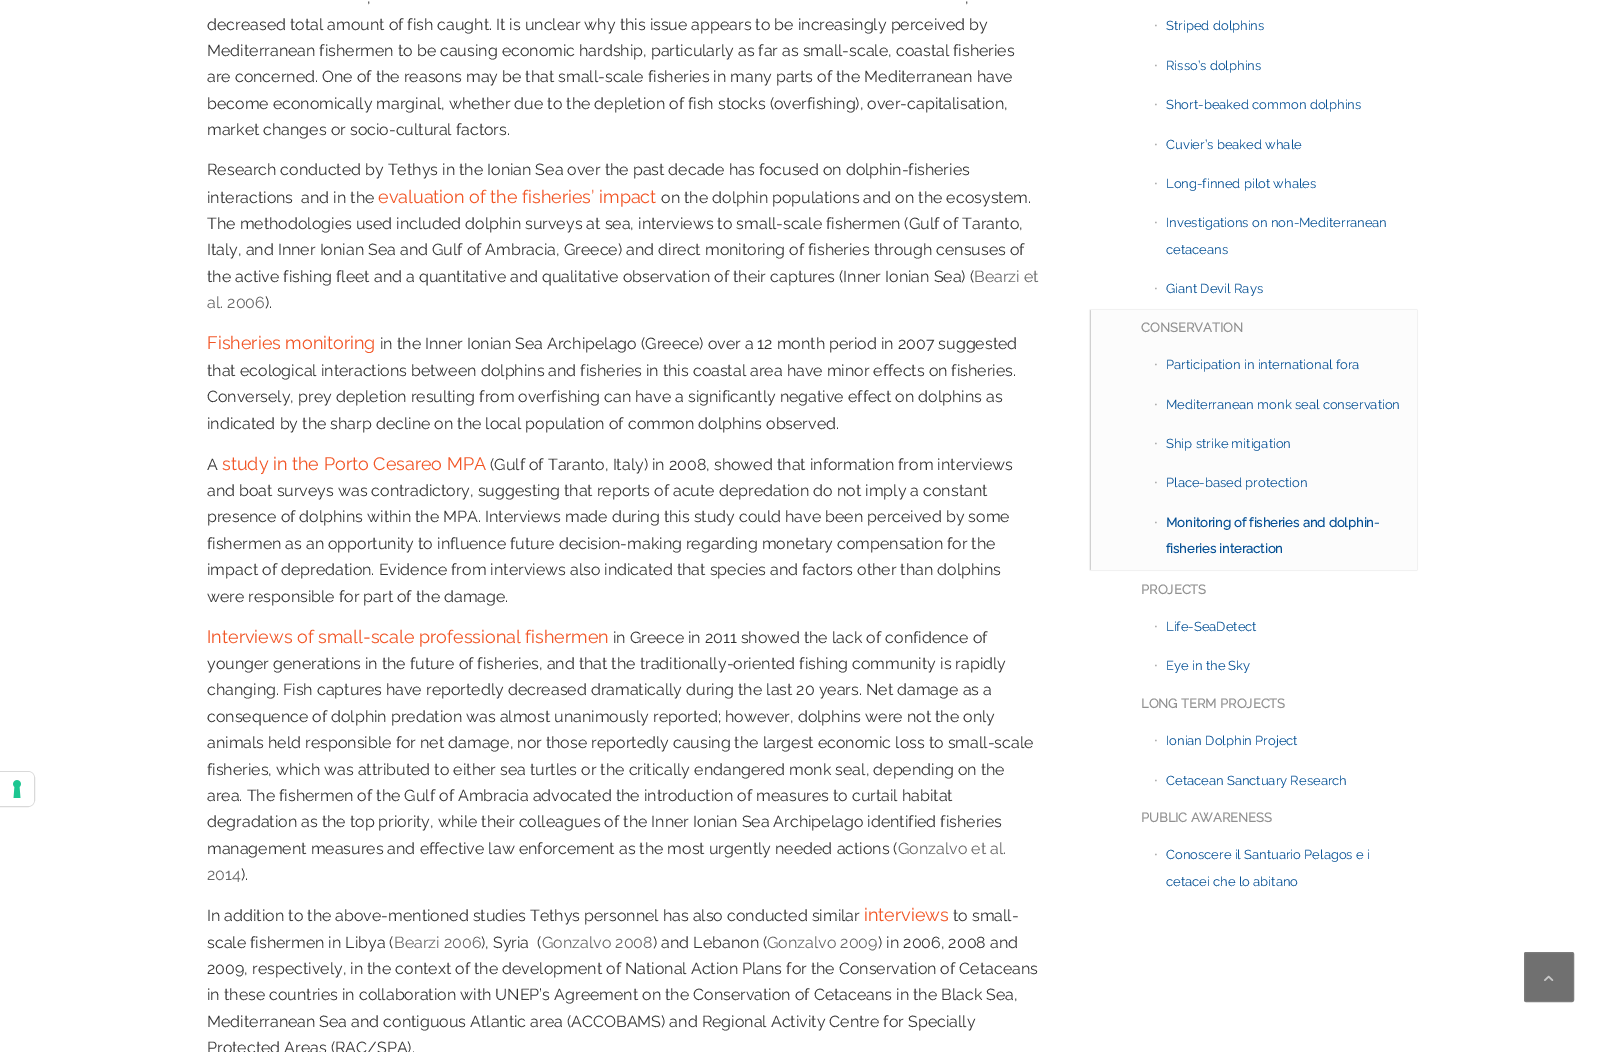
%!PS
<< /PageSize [1624 1052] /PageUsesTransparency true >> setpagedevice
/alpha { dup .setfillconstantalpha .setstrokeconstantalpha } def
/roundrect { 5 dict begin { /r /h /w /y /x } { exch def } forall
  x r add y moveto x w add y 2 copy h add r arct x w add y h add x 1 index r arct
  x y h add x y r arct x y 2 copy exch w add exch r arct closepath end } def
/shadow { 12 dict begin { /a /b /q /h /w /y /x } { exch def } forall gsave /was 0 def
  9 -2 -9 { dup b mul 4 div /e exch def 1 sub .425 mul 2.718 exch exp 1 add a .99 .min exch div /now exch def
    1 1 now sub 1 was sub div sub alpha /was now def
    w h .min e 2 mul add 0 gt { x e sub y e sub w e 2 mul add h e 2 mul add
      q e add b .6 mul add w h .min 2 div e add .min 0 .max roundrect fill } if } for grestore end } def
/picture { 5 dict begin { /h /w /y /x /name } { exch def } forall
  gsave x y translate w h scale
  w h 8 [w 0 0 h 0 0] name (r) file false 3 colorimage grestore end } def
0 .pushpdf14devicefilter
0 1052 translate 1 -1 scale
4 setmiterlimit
1 setgray
0 0 1624 1052 rectfill
0.851 setgray
newpath -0.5 771.5 moveto 28 771.5 lineto 31.5 771.5 34.5 774.5 34.5 778 curveto 34.5 800 lineto 34.5 803.5 31.5 806.5 28 806.5 curveto -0.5 806.5 lineto closepath stroke
1 setgray
newpath 0 772 moveto 28 772 lineto 31.5 772 34 774.5 34 778 curveto 34 800 lineto 34 803.5 31.5 806 28 806 curveto 0 806 lineto closepath fill
(img1.rgb) 13 780 8 18 picture
/Raleway-Thin [16 0 0 -16 0 0] selectfont
0.2 setgray
367 3 moveto (,) show
965 3 moveto (,) show
207 30 moveto (decreased total amount of fish caught. It is unclear why this issue appears to be increasingly perceived by) show
207 56 moveto (Mediterranean fishermen to be causing economic hardship, particularly as far as small-scale, coastal fisheries) show
207 82 moveto (are concerned. One of the reasons may be that small-scale fisheries in many parts of the Mediterranean have) show
207 109 moveto (become economically marginal, whether due to the depletion of fish stocks \(overfishing\), over-capitalisation,) show
207 135 moveto (market changes or socio-cultural factors.) show
207 175 moveto (Research conducted by Tethys in the Ionian Sea over the past decade has focused on dolphin-fisheries) show
207 203 moveto (interactions  and in the) show
/Raleway-Thin [18 0 0 -18 0 0] selectfont
0.945 0.333 0.145 setrgbcolor
378 203 moveto (evaluation of the fisheries’ impact) show
/Raleway-Thin [16 0 0 -16 0 0] selectfont
0.2 setgray
661 203 moveto (on the dolphin populations and on the ecosystem.) show
207 229 moveto (The methodologies used included dolphin surveys at sea, interviews to small-scale fishermen \(Gulf of Taranto,) show
207 255 moveto (Italy, and Inner Ionian Sea and Gulf of Ambracia, Greece\) and direct monitoring of fisheries through censuses of) show
207 282 moveto (the active fishing fleet and a quantitative and qualitative observation of their captures \(Inner Ionian Sea\) \() show
0.4 setgray
974 282 moveto (Bearzi et) show
207 308 moveto (al. 2006) show
0.2 setgray
265 308 moveto (\).) show
/Raleway-Thin [18 0 0 -18 0 0] selectfont
0.945 0.333 0.145 setrgbcolor
207 349 moveto (Fisheries monitoring) show
/Raleway-Thin [16 0 0 -16 0 0] selectfont
0.2 setgray
380 349 moveto (in the Inner Ionian Sea Archipelago \(Greece\) over a 12 month period in 2007 suggested) show
207 376 moveto (that ecological interactions between dolphins and fisheries in this coastal area have minor effects on fisheries.) show
207 402 moveto (Conversely, prey depletion resulting from overfishing can have a significantly negative effect on dolphins as) show
207 429 moveto (indicated by the sharp decline on the local population of common dolphins observed.) show
207 470 moveto (A) show
/Raleway-Thin [18 0 0 -18 0 0] selectfont
0.945 0.333 0.145 setrgbcolor
222 470 moveto (study in the Porto Cesareo MPA) show
/Raleway-Thin [16 0 0 -16 0 0] selectfont
0.2 setgray
490 470 moveto (\(Gulf of Taranto, Italy\) in 2008, showed that information from interviews) show
207 496 moveto (and boat surveys was contradictory, suggesting that reports of acute depredation do not imply a constant) show
207 522 moveto (presence of dolphins within the MPA. Interviews made during this study could have been perceived by some) show
207 549 moveto (fishermen as an opportunity to influence future decision-making regarding monetary compensation for the) show
207 575 moveto (impact of depredation. Evidence from interviews also indicated that species and factors other than dolphins) show
207 602 moveto (were responsible for part of the damage.) show
/Raleway-Thin [18 0 0 -18 0 0] selectfont
0.945 0.333 0.145 setrgbcolor
207 643 moveto (Interviews of small-scale professional fishermen) show
/Raleway-Thin [16 0 0 -16 0 0] selectfont
0.2 setgray
613 643 moveto (in Greece in 2011 showed the lack of confidence of) show
207 669 moveto (younger generations in the future of fisheries, and that the traditionally-oriented fishing community is rapidly) show
207 695 moveto (changing. Fish captures have reportedly decreased dramatically during the last 20 years. Net damage as a) show
207 722 moveto (consequence of dolphin predation was almost unanimously reported; however, dolphins were not the only) show
207 748 moveto (animals held responsible for net damage, nor those reportedly causing the largest economic loss to small-scale) show
207 775 moveto (fisheries, which was attributed to either sea turtles or the critically endangered monk seal, depending on the) show
207 801 moveto (area. The fishermen of the Gulf of Ambracia advocated the introduction of measures to curtail habitat) show
207 827 moveto (degradation as the top priority, while their colleagues of the Inner Ionian Sea Archipelago identified fisheries) show
207 854 moveto (management measures and effective law enforcement as the most urgently needed actions \() show
0.4 setgray
898 854 moveto (Gonzalvo et al.) show
207 880 moveto (2014) show
0.2 setgray
241 880 moveto (\).) show
207 921 moveto (In addition to the above-mentioned studies Tethys personnel has also conducted similar) show
/Raleway-Thin [18 0 0 -18 0 0] selectfont
0.945 0.333 0.145 setrgbcolor
864 921 moveto (interviews) show
/Raleway-Thin [16 0 0 -16 0 0] selectfont
0.2 setgray
953 921 moveto (to small-) show
207 948 moveto (scale fishermen in Libya \() show
0.4 setgray
394 948 moveto (Bearzi 2006) show
0.2 setgray
481 948 moveto (\), Syria  \() show
0.4 setgray
542 948 moveto (Gonzalvo 2008) show
0.2 setgray
653 948 moveto (\) and Lebanon \() show
0.4 setgray
767 948 moveto (Gonzalvo 2009) show
0.2 setgray
878 948 moveto (\) in 2006, 2008 and) show
207 974 moveto (2009, respectively, in the context of the development of National Action Plans for the Conservation of Cetaceans) show
207 1000 moveto (in these countries in collaboration with UNEP’s Agreement on the Conservation of Cetaceans in the Black Sea,) show
207 1027 moveto (Mediterranean Sea and contiguous Atlantic area \(ACCOBAMS\) and Regional Activity Centre for Specially) show
207 1053 moveto (Protected Areas \(RAC/SPA\).) show
/LiberationSans-Regular [13 0 0 -13 0 0] selectfont
0.569 setgray
1154 29 moveto (∙) show
/Raleway-Thin [13 0 0 -13 0 0] selectfont
0.02 0.314 0.58 setrgbcolor
1166 30 moveto (Striped dolphins) show
/LiberationSans-Regular [13 0 0 -13 0 0] selectfont
0.569 setgray
1154 69 moveto (∙) show
/Raleway-Thin [13 0 0 -13 0 0] selectfont
0.02 0.314 0.58 setrgbcolor
1166 70 moveto (Risso’s dolphins) show
/LiberationSans-Regular [13 0 0 -13 0 0] selectfont
0.569 setgray
1154 108 moveto (∙) show
/Raleway-Thin [13 0 0 -13 0 0] selectfont
0.02 0.314 0.58 setrgbcolor
1166 109 moveto (Short-beaked common dolphins) show
/LiberationSans-Regular [13 0 0 -13 0 0] selectfont
0.569 setgray
1154 148 moveto (∙) show
/Raleway-Thin [13 0 0 -13 0 0] selectfont
0.02 0.314 0.58 setrgbcolor
1166 149 moveto (Cuvier’s beaked whale) show
/LiberationSans-Regular [13 0 0 -13 0 0] selectfont
0.569 setgray
1154 187 moveto (∙) show
/Raleway-Thin [13 0 0 -13 0 0] selectfont
0.02 0.314 0.58 setrgbcolor
1166 188 moveto (Long-finned pilot whales) show
/LiberationSans-Regular [13 0 0 -13 0 0] selectfont
0.569 setgray
1154 226 moveto (∙) show
/Raleway-Thin [13 0 0 -13 0 0] selectfont
0.02 0.314 0.58 setrgbcolor
1166 227 moveto (Investigations on non-Mediterranean) show
1166 254 moveto (cetaceans) show
/LiberationSans-Regular [13 0 0 -13 0 0] selectfont
0.569 setgray
1154 292 moveto (∙) show
/Raleway-Thin [13 0 0 -13 0 0] selectfont
0.02 0.314 0.58 setrgbcolor
1166 293 moveto (Giant Devil Rays) show
0 setgray
1090 310 327 260 0 0.5 0.2 shadow
0.988 setgray
1091 310 326 260 rectfill
/Raleway-Bold [13 0 0 -13 0 0] selectfont
0.569 setgray
1141 332 moveto (CONSERVATION) show
/LiberationSans-Regular [13 0 0 -13 0 0] selectfont
1154 368 moveto (∙) show
/Raleway-Thin [13 0 0 -13 0 0] selectfont
0.02 0.314 0.58 setrgbcolor
1166 369 moveto (Participation in international fora) show
/LiberationSans-Regular [13 0 0 -13 0 0] selectfont
0.569 setgray
1154 408 moveto (∙) show
/Raleway-Thin [13 0 0 -13 0 0] selectfont
0.02 0.314 0.58 setrgbcolor
1166 409 moveto (Mediterranean monk seal conservation) show
/LiberationSans-Regular [13 0 0 -13 0 0] selectfont
0.569 setgray
1154 447 moveto (∙) show
/Raleway-Thin [13 0 0 -13 0 0] selectfont
0.02 0.314 0.58 setrgbcolor
1166 448 moveto (Ship strike mitigation) show
/LiberationSans-Regular [13 0 0 -13 0 0] selectfont
0.569 setgray
1154 486 moveto (∙) show
/Raleway-Thin [13 0 0 -13 0 0] selectfont
0.02 0.314 0.58 setrgbcolor
1166 487 moveto (Place-based protection) show
/LiberationSans-Regular [13 0 0 -13 0 0] selectfont
0.569 setgray
1154 526 moveto (∙) show
/Raleway-Bold [13 0 0 -13 0 0] selectfont
0.02 0.314 0.58 setrgbcolor
1166 527 moveto (Monitoring of fisheries and dolphin-) show
1166 553 moveto (fisheries interaction) show
0.569 setgray
1141 594 moveto (PROJECTS) show
/LiberationSans-Regular [13 0 0 -13 0 0] selectfont
1154 630 moveto (∙) show
/Raleway-Thin [13 0 0 -13 0 0] selectfont
0.02 0.314 0.58 setrgbcolor
1166 631 moveto (Life-SeaDetect) show
/LiberationSans-Regular [13 0 0 -13 0 0] selectfont
0.569 setgray
1154 669 moveto (∙) show
/Raleway-Thin [13 0 0 -13 0 0] selectfont
0.02 0.314 0.58 setrgbcolor
1166 670 moveto (Eye in the Sky) show
/Raleway-Bold [13 0 0 -13 0 0] selectfont
0.569 setgray
1141 708 moveto (LONG TERM PROJECTS) show
/LiberationSans-Regular [13 0 0 -13 0 0] selectfont
1154 744 moveto (∙) show
/Raleway-Thin [13 0 0 -13 0 0] selectfont
0.02 0.314 0.58 setrgbcolor
1166 745 moveto (Ionian Dolphin Project) show
/LiberationSans-Regular [13 0 0 -13 0 0] selectfont
0.569 setgray
1154 784 moveto (∙) show
/Raleway-Thin [13 0 0 -13 0 0] selectfont
0.02 0.314 0.58 setrgbcolor
1166 785 moveto (Cetacean Sanctuary Research) show
/Raleway-Bold [13 0 0 -13 0 0] selectfont
0.569 setgray
1141 822 moveto (PUBLIC AWARENESS) show
/LiberationSans-Regular [13 0 0 -13 0 0] selectfont
1154 858 moveto (∙) show
/Raleway-Thin [13 0 0 -13 0 0] selectfont
0.02 0.314 0.58 setrgbcolor
1166 859 moveto (Conoscere il Santuario Pelagos e i) show
1166 886 moveto (cetacei che lo abitano) show
0.439 setgray
1524.5 952.5 49 49 1.5 roundrect gsave fill grestore
0.486 setgray
stroke
(img2.rgb) 1544 975 10 6 picture
.poppdf14devicefilter showpage
